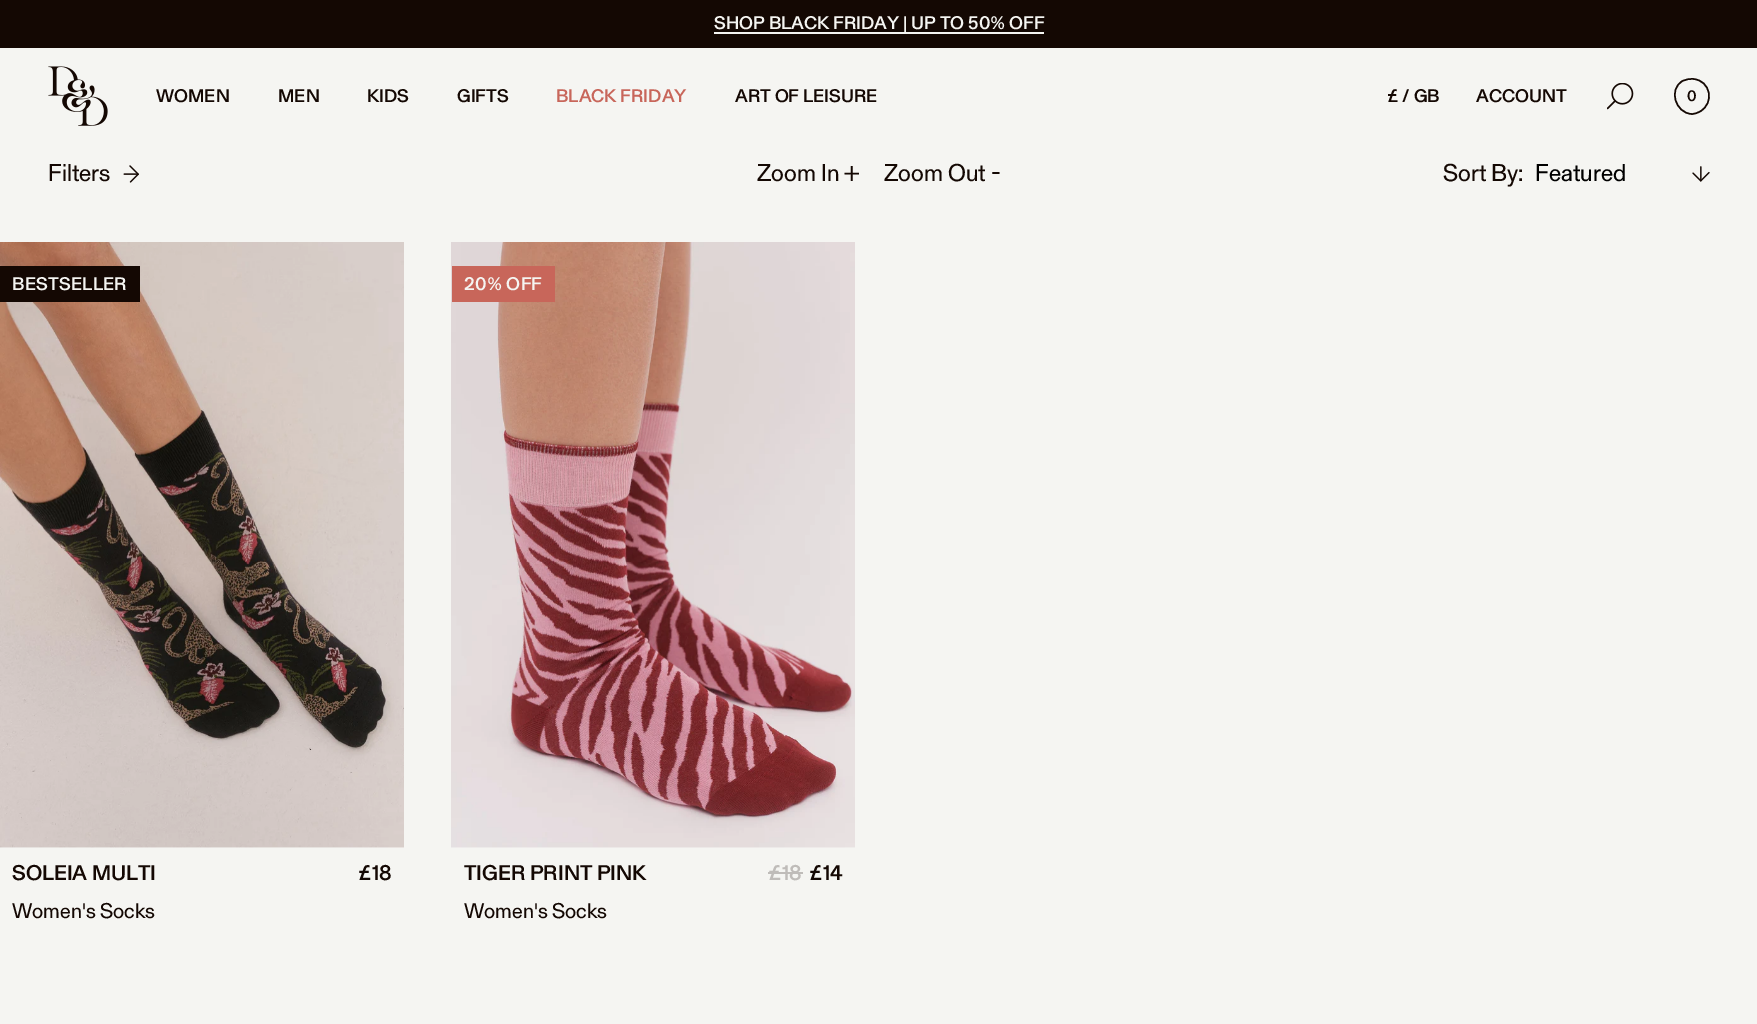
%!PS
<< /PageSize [1757 1024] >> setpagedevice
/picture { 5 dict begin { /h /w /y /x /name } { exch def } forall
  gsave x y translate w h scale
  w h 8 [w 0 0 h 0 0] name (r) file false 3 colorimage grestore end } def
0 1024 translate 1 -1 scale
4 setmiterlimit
0.961 0.961 0.949 setrgbcolor
0 0 1757 1024 rectfill
0.078 0.031 0.012 setrgbcolor
0 0 1757 48 rectfill
0.961 0.961 0.949 setrgbcolor
714 32 330 2 rectfill
/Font-Medium [18 0 0 -18 0 0] selectfont
714 29 moveto (SHOP BLACK FRIDAY | UP TO 50% OFF) show
/Font-Regular [24 0 0 -24 0 0] selectfont
0.078 0.031 0.012 setrgbcolor
48 181 moveto (Filters) show
(img1.rgb) 123 165 16 18 picture
757 181 moveto (Zoom In +) show
884 181 moveto (Zoom Out -) show
1443 181 moveto (Sort By:) show
0 setgray
1535 181 moveto (Featured) show
(img2.rgb) 1692 166 18 16 picture
(img3.rgb) 0 242 404 606 picture
0.078 0.031 0.012 setrgbcolor
0 266 140 36 rectfill
/Font-Medium [18 0 0 -18 0 0] selectfont
0.961 0.961 0.949 setrgbcolor
12 290 moveto 0.25 0 (BESTSELLER) ashow
/Font-Medium [21 0 0 -21 0 0] selectfont
0.078 0.031 0.012 setrgbcolor
12 880 moveto (SOLEIA MULTI) show
358 880 moveto (£18) show
/Font-Regular [21 0 0 -21 0 0] selectfont
12 918 moveto (Women's Socks) show
(img4.rgb) 451 242 404 606 picture
0.784 0.4 0.353 setrgbcolor
452 266 103 36 rectfill
/Font-Medium [18 0 0 -18 0 0] selectfont
0.961 0.961 0.949 setrgbcolor
464 290 moveto 0.25 0 (20% OFF) ashow
/Font-Medium [21 0 0 -21 0 0] selectfont
0.078 0.031 0.012 setrgbcolor
464 880 moveto (TIGER PRINT PINK) show
0.749 0.737 0.725 setrgbcolor
768 880 moveto (£18) show
768 872 35 2 rectfill
0.078 0.031 0.012 setrgbcolor
809 880 moveto (£14) show
/Font-Regular [21 0 0 -21 0 0] selectfont
464 918 moveto (Women's Socks) show
(img5.rgb) 48 66 60 60 picture
/Font-Medium [18 0 0 -18 0 0] selectfont
156 102 moveto (WOMEN) show
278 102 moveto (MEN) show
367 102 moveto (KIDS) show
457 102 moveto (GIFTS) show
0.784 0.4 0.353 setrgbcolor
556 102 moveto (BLACK FRIDAY) show
0.078 0.031 0.012 setrgbcolor
735 102 moveto (ART OF LEISURE) show
1387 102 moveto (£ / GB) show
1476 102 moveto (ACCOUNT) show
(img6.rgb) 1607 83 27 27 picture
1.5 setlinewidth
newpath 1691.5 114 moveto 1675.5 113 1668 89.5 1682.5 81 curveto 1686 79.5 1689.5 78.5 1693.5 79 curveto 1710.5 80.5 1715 103 1700 111.5 curveto 1697.5 113 1694.5 114 1691.5 114 curveto closepath stroke
/Font-Medium [15 0 0 -15 0 0] selectfont
1687 101 moveto (0) show
showpage
